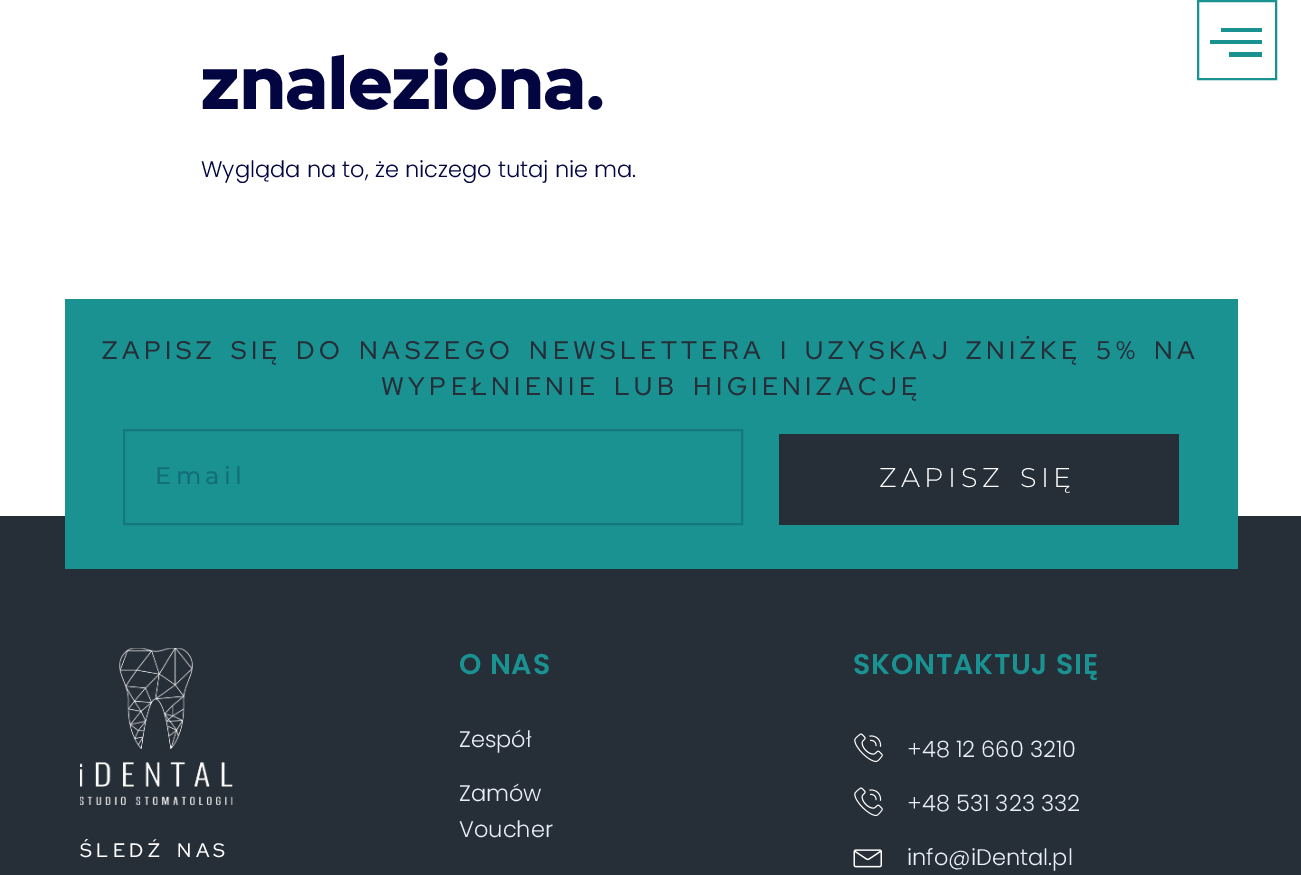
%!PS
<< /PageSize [1301 875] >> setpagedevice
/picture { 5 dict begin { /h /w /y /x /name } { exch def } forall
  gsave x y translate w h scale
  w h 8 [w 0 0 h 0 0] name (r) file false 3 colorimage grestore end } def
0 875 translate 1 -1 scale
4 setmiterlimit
1 setgray
0 0 1301 875 rectfill
0.102 0.573 0.573 setrgbcolor
2 setlinewidth
1198 1 78 78 rectstroke
newpath 1210 44 moveto 1262 44 lineto 1262 40 lineto 1210 40 lineto closepath 1229 57 moveto 1262 57 lineto 1262 52 lineto 1229 52 lineto closepath 1221 28 moveto 1221 32 lineto 1262 32 lineto 1262 28 lineto closepath fill
/RedHatDisplay-Black [75 0 0 -75 0 0] selectfont
0.012 0.02 0.255 setrgbcolor
201 109 moveto (znaleziona.) show
/Poppins-Light [22.5 0 0 -22.5 0 0] selectfont
201 177 moveto (Wygląda na to, że niczego tutaj nie ma.) show
0.149 0.18 0.22 setrgbcolor
0 516 1301 359 rectfill
0.102 0.573 0.573 setrgbcolor
65 299 1173 270 rectfill
/RedHatDisplay-Medium [25.5 0 0 -25.5 0 0] selectfont
0.149 0.18 0.22 setrgbcolor
102 359 moveto 5 0 32 4.5 0 (ZAPISZ SIĘ DO NASZEGO NEWSLETTERA I UZYSKAJ ZNIŻKĘ 5% NA) awidthshow
381 395 moveto 5 0 32 4.5 0 (WYPEŁNIENIE LUB HIGIENIZACJĘ) awidthshow
0.082 0.471 0.506 setrgbcolor
124 430 618 94 rectstroke
/Montserrat-Thin [24 0 0 -24 0 0] selectfont
0.075 0.435 0.482 setrgbcolor
155 484 moveto 4.5 0 (Email) ashow
0.149 0.18 0.22 setrgbcolor
779 434 400 91 rectfill
/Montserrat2-Thin [27 0 0 -27 0 0] selectfont
1 setgray
879 487 moveto 5 0 32 4.5 0 (ZAPISZ SIĘ) awidthshow
(img1.rgb) 80 648 153 157 picture
/RedHatDisplay-Medium [19.5 0 0 -19.5 0 0] selectfont
80 857 moveto 4 0 32 4.5 0 (ŚLEDŹ NAS) awidthshow
/Poppins-SemiBold [28.5 0 0 -28.5 0 0] selectfont
0.102 0.573 0.573 setrgbcolor
459 674 moveto 0.75 0 (O NAS) ashow
/Poppins-Light [22.5 0 0 -22.5 0 0] selectfont
0.914 0.937 0.973 setrgbcolor
459 747 moveto (Zespół) show
459 801 moveto (Zamów) show
459 837 moveto (Voucher) show
/Poppins-SemiBold [28.5 0 0 -28.5 0 0] selectfont
0.102 0.573 0.573 setrgbcolor
853 674 moveto 0.75 0 (SKONTAKTUJ SIĘ) ashow
(img2.rgb) 854 733 29 29 picture
/Poppins-Light [22.5 0 0 -22.5 0 0] selectfont
0.914 0.937 0.973 setrgbcolor
907 757 moveto (+48 12 660 3210) show
(img2.rgb) 854 787 29 29 picture
907 811 moveto (+48 531 323 332) show
(img3.rgb) 853 849 29 19 picture
907 865 moveto (info@iDental.pl) show
showpage
